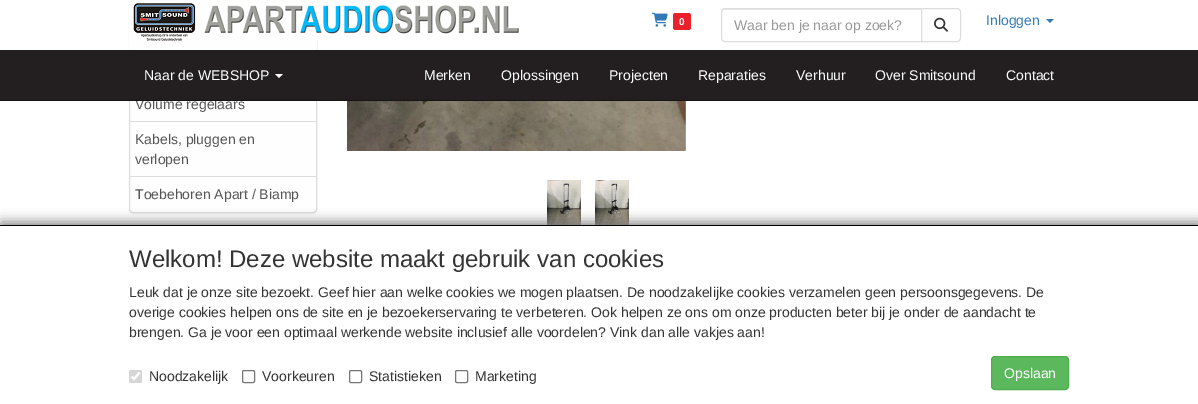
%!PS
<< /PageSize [1198 404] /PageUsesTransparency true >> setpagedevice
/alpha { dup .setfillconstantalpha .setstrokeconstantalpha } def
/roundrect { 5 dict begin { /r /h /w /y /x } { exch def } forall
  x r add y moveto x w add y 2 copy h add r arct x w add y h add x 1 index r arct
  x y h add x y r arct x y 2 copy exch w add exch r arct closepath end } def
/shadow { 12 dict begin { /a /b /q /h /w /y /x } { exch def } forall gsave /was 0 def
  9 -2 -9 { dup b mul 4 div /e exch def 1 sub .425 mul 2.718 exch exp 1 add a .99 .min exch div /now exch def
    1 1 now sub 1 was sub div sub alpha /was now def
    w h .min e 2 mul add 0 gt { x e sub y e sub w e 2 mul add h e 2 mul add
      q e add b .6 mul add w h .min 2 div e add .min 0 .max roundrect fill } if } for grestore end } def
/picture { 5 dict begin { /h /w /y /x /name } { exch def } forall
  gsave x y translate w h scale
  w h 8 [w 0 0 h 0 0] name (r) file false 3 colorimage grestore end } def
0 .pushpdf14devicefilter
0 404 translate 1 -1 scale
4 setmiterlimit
1 setgray
0 0 1198 404 rectfill
0 setgray
129 -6 188 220 4 0.5 0.05 shadow
0.996 setgray
129.5 -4.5 187 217 3.5 roundrect gsave fill grestore
0.867 setgray
stroke
0.996 setgray
129 0 188 50 rectfill
(img1.rgb) 133 3 386 38 picture
(img2.rgb) 652 12 16 15 picture
0.918 0.129 0.169 setrgbcolor
673 13 18 17 2.5 roundrect fill
/LiberationSans-Bold [10 0 0 -10 0 0] selectfont
0.996 setgray
679 25 moveto (0) show
0.922 setgray
newpath 725 10 moveto 921 10 lineto 921 9 lineto 725 9 lineto 723 9 722 11 722 13 curveto 722 11 723 10 725 10 curveto closepath fill
0.867 setgray
newpath 725 8.5 moveto 921.5 8.5 lineto 921.5 41.5 lineto 725 41.5 lineto 723 41.5 721.5 40 721.5 38 curveto 721.5 12 lineto 721.5 10 723 8.5 725 8.5 curveto closepath stroke
/LiberationSans-Regular [14 0 0 -14 0 0] selectfont
0.6 setgray
734 30 moveto (Waar ben je naar op zoek?) show
0.996 setgray
newpath 921.5 8.5 moveto 957 8.5 lineto 959 8.5 960.5 10 960.5 12 curveto 960.5 38 lineto 960.5 40 959 41.5 957 41.5 curveto 921.5 41.5 lineto closepath gsave fill grestore
0.867 setgray
stroke
(img3.rgb) 934 17 14 15 picture
0.2 0.478 0.718 setrgbcolor
986 25 moveto (Inloggen) show
newpath 1046 19 moveto 1054 19 lineto 1050 23 lineto closepath fill
0.333 setgray
135 109 moveto (Volume regelaars) show
0.137 0.122 0.125 setrgbcolor
0 50 1198 50 rectfill
0.082 0.075 0.078 setrgbcolor
0 100 1198 1 rectfill
0.996 setgray
144 80 moveto (Naar de WEBSHOP) show
newpath 275 74 moveto 283 74 lineto 279 78 lineto closepath fill
424 80 moveto (Merken) show
501 80 moveto (Oplossingen) show
609 80 moveto (Projecten) show
698 80 moveto (Reparaties) show
796 80 moveto (Verhuur) show
875 80 moveto (Over Smitsound) show
1006 80 moveto (Contact) show
0.867 setgray
130 121 186 1 rectfill
0.333 setgray
135 144 moveto (Kabels, pluggen en) show
135 164 moveto (verlopen) show
0.867 setgray
130 176 186 1 rectfill
0.333 setgray
135 199 moveto (Toebehoren Apart / Biamp) show
(img4.rgb) 347 101 339 50 picture
(img5.rgb) 547 180 34 45 picture
(img6.rgb) 595 180 34 45 picture
0.502 setgray
1 222 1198 179 0 6 1 shadow
1 setgray
0 226 1198 178 rectfill
0 setgray
0 225 1198 1 rectfill
/LiberationSans-Regular [24 0 0 -24 0 0] selectfont
0.204 setgray
129 267 moveto (Welkom! Deze website maakt gebruik van cookies) show
/LiberationSans-Regular [14 0 0 -14 0 0] selectfont
129 297 moveto (Leuk dat je onze site bezoekt. Geef hier aan welke cookies we mogen plaatsen. De noodzakelijke cookies verzamelen geen persoonsgegevens. De) show
129 317 moveto (overige cookies helpen ons de site en je bezoekerservaring te verbeteren. Ook helpen ze ons om onze producten beter bij je onder de aandacht te) show
129 337 moveto (brengen. Ga je voor een optimaal werkende website inclusief alle voordelen? Vink dan alle vakjes aan!) show
0.839 setgray
129 370 13 13 2 roundrect fill
1 setgray
2.1 setlinewidth
newpath 131.5 376.5 moveto 134 379 lineto 139.5 372.5 lineto stroke
0.204 setgray
149 381 moveto (Noodzakelijk) show
0.463 setgray
1 setlinewidth
242.5 370.5 12 12 1.5 roundrect stroke
0.204 setgray
262 381 moveto (Voorkeuren) show
0.463 setgray
349.5 370.5 12 12 1.5 roundrect stroke
0.204 setgray
369 381 moveto (Statistieken) show
0.463 setgray
455.5 370.5 12 12 1.5 roundrect stroke
0.204 setgray
475 381 moveto (Marketing) show
0.361 0.722 0.361 setrgbcolor
991.5 356.5 77 33 3.5 roundrect gsave fill grestore
0.298 0.682 0.298 setrgbcolor
stroke
0.996 setgray
1004 378 moveto (Opslaan) show
.poppdf14devicefilter showpage
